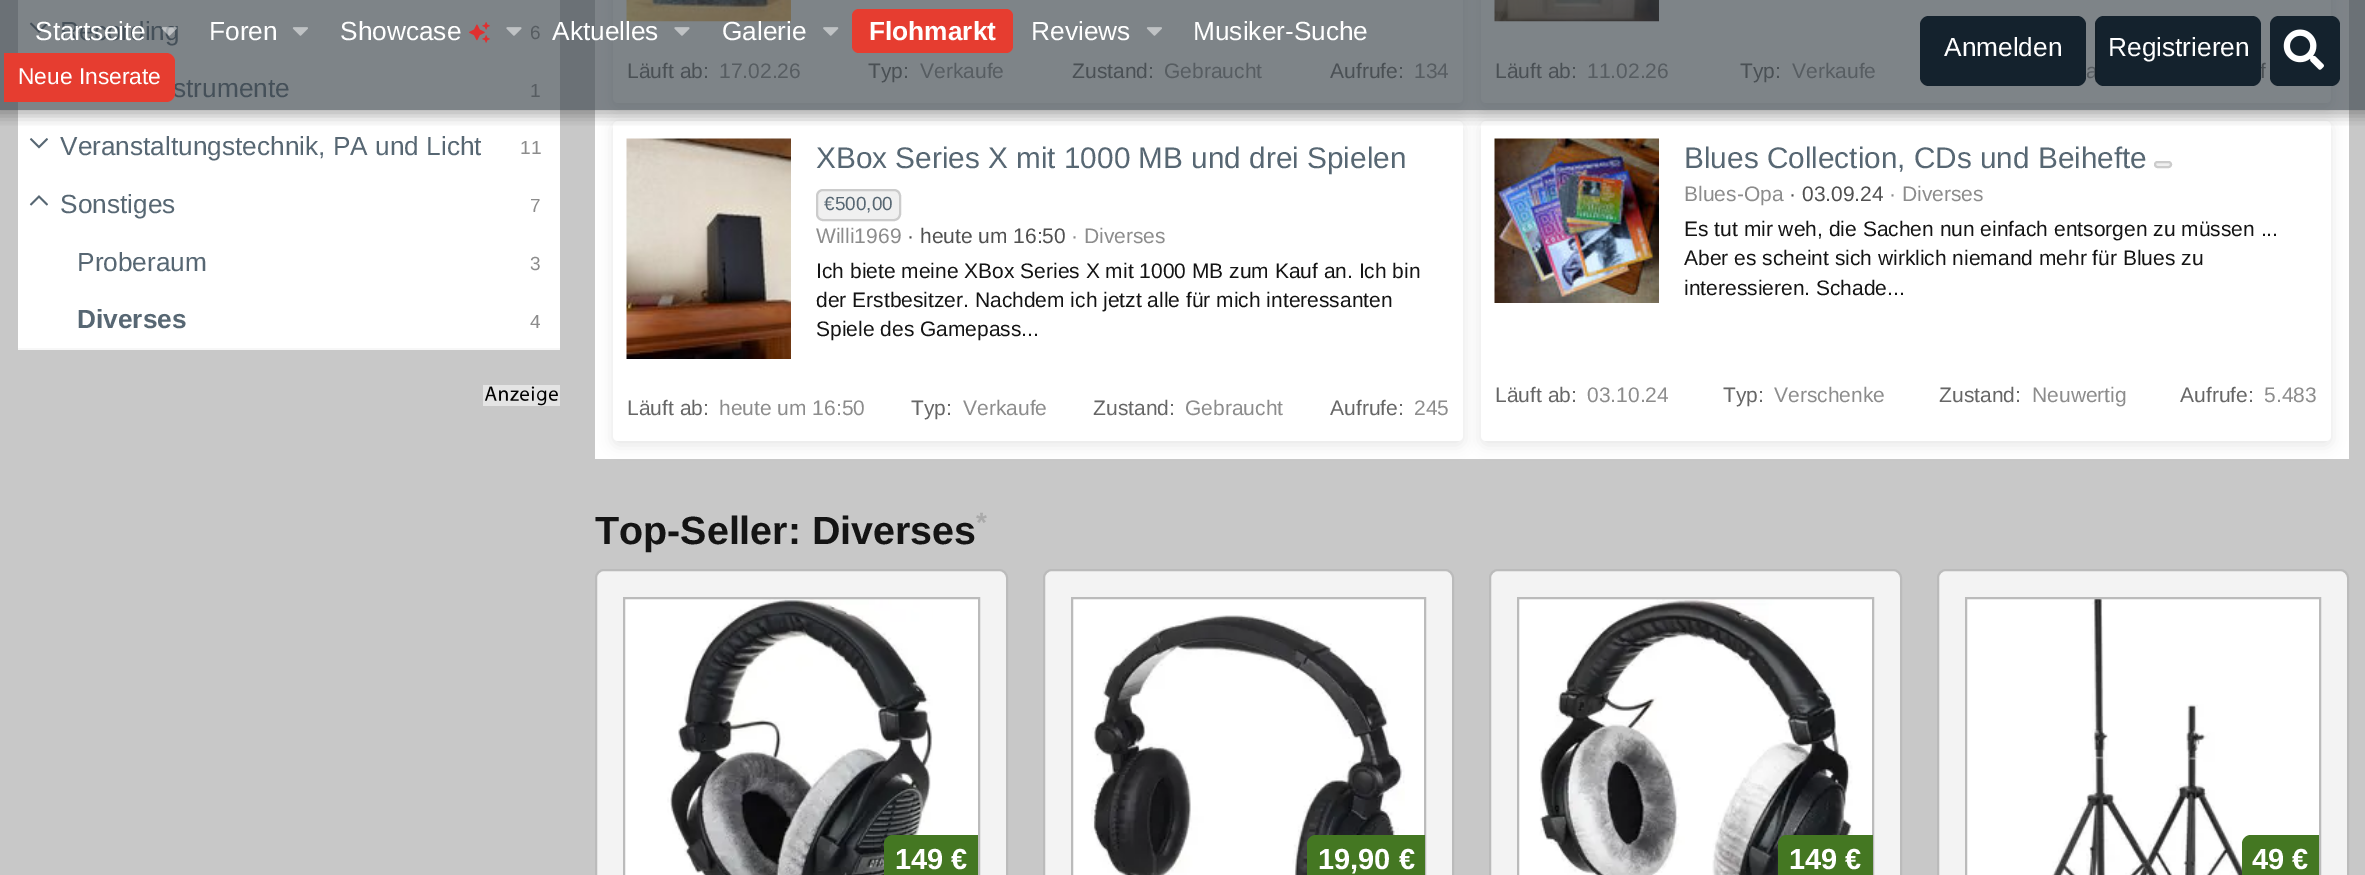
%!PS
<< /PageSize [2365 875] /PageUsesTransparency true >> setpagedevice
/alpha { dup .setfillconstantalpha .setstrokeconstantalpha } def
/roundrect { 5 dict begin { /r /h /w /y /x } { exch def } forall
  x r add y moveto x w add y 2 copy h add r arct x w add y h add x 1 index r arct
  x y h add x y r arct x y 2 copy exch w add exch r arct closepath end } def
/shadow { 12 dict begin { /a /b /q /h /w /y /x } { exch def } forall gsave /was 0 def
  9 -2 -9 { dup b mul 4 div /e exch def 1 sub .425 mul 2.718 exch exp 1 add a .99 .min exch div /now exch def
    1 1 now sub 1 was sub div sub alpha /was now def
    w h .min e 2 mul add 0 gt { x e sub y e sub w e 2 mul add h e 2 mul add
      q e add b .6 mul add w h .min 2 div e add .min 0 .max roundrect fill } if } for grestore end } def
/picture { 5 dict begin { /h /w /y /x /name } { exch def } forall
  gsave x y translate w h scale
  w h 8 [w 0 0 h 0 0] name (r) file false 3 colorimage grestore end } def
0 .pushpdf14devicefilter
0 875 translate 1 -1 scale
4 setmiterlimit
0.784 setgray
0 0 2365 875 rectfill
1 setgray
18 0 542 348 rectfill
(img7.rgb) 29 22 19 11 picture
595 0 1754 459 rectfill
0 setgray
613 -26 850 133 5 7 0.1 shadow
1 setgray
613 -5 850 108 5 roundrect fill
(img11.rgb) 626 0 165 22 picture
0 setgray
1481 -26 850 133 5 7 0.1 shadow
1 setgray
1481 -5 850 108 5 roundrect fill
(img12.rgb) 1494 0 165 22 picture
0 setgray
613 124 850 321 5 7 0.1 shadow
1 setgray
613 121 850 320 5 roundrect fill
0 setgray
1481 124 850 321 5 7 0.1 shadow
1 setgray
1481 121 850 320 5 roundrect fill
gsave
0 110 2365 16 rectclip
0 setgray
-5 -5 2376 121 0 7 0.3 shadow
grestore
/LiberationSans-Regular [26.25 0 0 -26.25 0 0] selectfont
0.341 0.404 0.451 setrgbcolor
60 40 moveto (Recording) show
/LiberationSans-Regular [19 0 0 -19 0 0] selectfont
0.549 setgray
530 39 moveto (6) show
0.66 alpha
0.231 0.267 0.294 setrgbcolor
0 0 2365 53 rectfill
/LiberationSans-Regular [26.25 0 0 -26.25 0 0] selectfont
1 alpha
1 setgray
35 40 moveto (Startseite) show
(img1.rgb) 161 27 16 9 picture
209 40 moveto (Foren) show
(img2.rgb) 292 27 16 9 picture
340 40 moveto (Showcase) show
(img3.rgb) 469 22 21 21 picture
(img4.rgb) 506 27 16 9 picture
552 40 moveto (Aktuelles) show
(img4.rgb) 674 27 16 9 picture
722 40 moveto (Galerie) show
(img5.rgb) 823 27 16 9 picture
0.902 0.239 0.188 setrgbcolor
852 9 161 44 7 roundrect fill
/LiberationSans-Bold [26.25 0 0 -26.25 0 0] selectfont
1 setgray
869 40 moveto (Flohmarkt) show
/LiberationSans-Regular [26.25 0 0 -26.25 0 0] selectfont
1031 40 moveto (Reviews) show
(img2.rgb) 1146 27 16 9 picture
1193 40 moveto (Musiker-Suche) show
0.341 0.404 0.451 setrgbcolor
173 97 moveto (strumente) show
/LiberationSans-Regular [19 0 0 -19 0 0] selectfont
0.549 setgray
530 97 moveto (1) show
/LiberationSans-Regular [21 0 0 -21 0 0] selectfont
0.4 setgray
627 78 moveto (Läuft ab:) show
0.549 setgray
719 78 moveto (17.02.26) show
0.4 setgray
868 78 moveto (Typ:) show
0.549 setgray
920 78 moveto (Verkaufe) show
0.4 setgray
1072 78 moveto (Zustand:) show
0.549 setgray
1164 78 moveto (Gebraucht) show
0.4 setgray
1330 78 moveto (Aufrufe:) show
0.549 setgray
1414 78 moveto (134) show
0.4 setgray
1495 78 moveto (Läuft ab:) show
0.549 setgray
1587 78 moveto (11.02.26) show
0.4 setgray
1740 78 moveto (Typ:) show
0.549 setgray
1792 78 moveto (Verkaufe) show
2086 78 moveto (a) show
0.4 setgray
2260 78 moveto (f) show
0.66 alpha
0.231 0.267 0.294 setrgbcolor
0 53 2365 57 rectfill
1 alpha
0.078 0.133 0.176 setrgbcolor
1920 16 166 70 9 roundrect fill
/LiberationSans-Regular [26.25 0 0 -26.25 0 0] selectfont
1 setgray
1944 56 moveto (Anmelden) show
0.078 0.133 0.176 setrgbcolor
2095 16 166 70 9 roundrect fill
0.15 alpha
0.078 setgray
2095 21 2 61 rectfill
1 alpha
1 setgray
2108 56 moveto (Registrieren) show
0.078 0.133 0.176 setrgbcolor
2270 16 70 70 9 roundrect fill
(img6.rgb) 2283 29 41 41 picture
0.902 0.239 0.188 setrgbcolor
newpath 4 53 moveto 166 53 lineto 171 53 175 57 175 62 curveto 175 93 lineto 175 98 171 102 166 102 curveto 4 102 lineto closepath fill
/LiberationSans-Regular [22.75 0 0 -22.75 0 0] selectfont
1 setgray
18 84 moveto (Neue Inserate) show
(img8.rgb) 29 138 19 11 picture
/LiberationSans-Regular [26.25 0 0 -26.25 0 0] selectfont
0.341 0.404 0.451 setrgbcolor
60 155 moveto (Veranstaltungstechnik, PA und Licht) show
/LiberationSans-Regular [19 0 0 -19 0 0] selectfont
0.549 setgray
520 154 moveto (11) show
(img9.rgb) 29 195 19 11 picture
/LiberationSans-Regular [26.25 0 0 -26.25 0 0] selectfont
0.341 0.404 0.451 setrgbcolor
60 213 moveto (Sonstiges) show
/LiberationSans-Regular [19 0 0 -19 0 0] selectfont
0.549 setgray
530 212 moveto (7) show
/LiberationSans-Regular [26.25 0 0 -26.25 0 0] selectfont
0.341 0.404 0.451 setrgbcolor
77 271 moveto (Proberaum) show
/LiberationSans-Regular [19 0 0 -19 0 0] selectfont
0.549 setgray
530 270 moveto (3) show
/LiberationSans-Bold [26.25 0 0 -26.25 0 0] selectfont
0.341 0.404 0.451 setrgbcolor
77 328 moveto (Diverses) show
/LiberationSans-Regular [19 0 0 -19 0 0] selectfont
0.549 setgray
530 328 moveto (4) show
0.969 setgray
18 348 542 2 rectfill
(img10.rgb) 483 385 77 21 picture
(img13.rgb) 626 138 165 221 picture
/LiberationSans-Regular [29.75 0 0 -29.75 0 0] selectfont
0.341 0.404 0.451 setrgbcolor
816 168 moveto (XBox Series X mit 1000 MB und drei Spielen) show
0.941 setgray
817 190 83 30 6 roundrect gsave fill grestore
0.8 setgray
2 setlinewidth
stroke
/LiberationSans-Regular [19 0 0 -19 0 0] selectfont
0.341 0.404 0.451 setrgbcolor
824 210 moveto (€500,00) show
/LiberationSans-Regular [21 0 0 -21 0 0] selectfont
0.549 setgray
816 243 moveto (Willi1969) show
0.314 setgray
907 243 moveto (· heute um 16:50) show
0.549 setgray
1071 243 moveto (· Diverses) show
0.078 setgray
816 278 moveto (Ich biete meine XBox Series X mit 1000 MB zum Kauf an. Ich bin) show
816 307 moveto (der Erstbesitzer. Nachdem ich jetzt alle für mich interessanten) show
816 336 moveto (Spiele des Gamepass...) show
0.4 setgray
627 415 moveto (Läuft ab:) show
0.549 setgray
719 415 moveto (heute um 16:50) show
0.4 setgray
911 415 moveto (Typ:) show
0.549 setgray
963 415 moveto (Verkaufe) show
0.4 setgray
1093 415 moveto (Zustand:) show
0.549 setgray
1185 415 moveto (Gebraucht) show
0.4 setgray
1330 415 moveto (Aufrufe:) show
0.549 setgray
1414 415 moveto (245) show
(img14.rgb) 1494 138 165 165 picture
/LiberationSans-Regular [29.75 0 0 -29.75 0 0] selectfont
0.341 0.404 0.451 setrgbcolor
1684 168 moveto (Blues Collection, CDs und Beihefte) show
0.941 setgray
2155 162 16 5 2.5 roundrect gsave fill grestore
0.8 setgray
stroke
/LiberationSans-Regular [21 0 0 -21 0 0] selectfont
0.549 setgray
1684 201 moveto (Blues-Opa) show
0.314 setgray
1789 201 moveto (· 03.09.24) show
0.549 setgray
1889 201 moveto (· Diverses) show
0.078 setgray
1684 236 moveto (Es tut mir weh, die Sachen nun einfach entsorgen zu müssen ...) show
1684 265 moveto (Aber es scheint sich wirklich niemand mehr für Blues zu) show
1684 295 moveto (interessieren. Schade...) show
0.4 setgray
1495 402 moveto (Läuft ab:) show
0.549 setgray
1587 402 moveto (03.10.24) show
0.4 setgray
1723 402 moveto (Typ:) show
0.549 setgray
1774 402 moveto (Verschenke) show
0.4 setgray
1939 402 moveto (Zustand:) show
0.549 setgray
2032 402 moveto (Neuwertig) show
0.4 setgray
2180 402 moveto (Aufrufe:) show
0.549 setgray
2264 402 moveto (5.483) show
/LiberationSans-Bold [39.4 0 0 -39.4 0 0] selectfont
0.078 setgray
595 544 moveto (Top-Seller: Diverses) show
/LiberationSans-Bold [28 0 0 -28 0 0] selectfont
0.667 setgray
976 532 moveto (*) show
0.953 setgray
596 570 411 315 8 roundrect gsave fill grestore
0.733 setgray
stroke
1 setgray
625 599 353 276 rectfill
(img15.rgb) 667 599 266 276 picture
0.733 setgray
624 598 355 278 rectstroke
0.267 0.467 0.133 setrgbcolor
newpath 893 835 moveto 978 835 lineto 978 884 lineto 893 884 lineto 888 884 884 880 884 875 curveto 884 844 lineto 884 839 888 835 893 835 curveto closepath fill
/LiberationSans-Bold [29 0 0 -29 0 0] selectfont
1 setgray
895 869 moveto (149 €) show
0.953 setgray
1044 570 409 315 8 roundrect gsave fill grestore
0.733 setgray
stroke
1 setgray
1073 599 351 276 rectfill
(img16.rgb) 1091 615 314 260 picture
0.733 setgray
1072 598 353 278 rectstroke
0.267 0.467 0.133 setrgbcolor
newpath 1316 835 moveto 1425 835 lineto 1425 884 lineto 1316 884 lineto 1311 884 1307 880 1307 875 curveto 1307 844 lineto 1307 839 1311 835 1316 835 curveto closepath fill
1 setgray
1318 869 moveto (19,90 €) show
0.953 setgray
1490 570 411 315 8 roundrect gsave fill grestore
0.733 setgray
stroke
1 setgray
1519 599 353 276 rectfill
(img17.rgb) 1539 599 314 276 picture
0.733 setgray
1518 598 355 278 rectstroke
0.267 0.467 0.133 setrgbcolor
newpath 1787 835 moveto 1873 835 lineto 1873 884 lineto 1787 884 lineto 1782 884 1778 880 1778 875 curveto 1778 844 lineto 1778 839 1782 835 1787 835 curveto closepath fill
1 setgray
1789 869 moveto (149 €) show
0.953 setgray
1938 570 410 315 8 roundrect gsave fill grestore
0.733 setgray
stroke
1 setgray
1967 599 352 276 rectfill
(img18.rgb) 2052 599 196 276 picture
0.733 setgray
1966 598 354 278 rectstroke
0.267 0.467 0.133 setrgbcolor
newpath 2251 835 moveto 2319 835 lineto 2319 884 lineto 2251 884 lineto 2246 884 2242 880 2242 875 curveto 2242 844 lineto 2242 839 2246 835 2251 835 curveto closepath fill
1 setgray
2252 869 moveto (49 €) show
.poppdf14devicefilter showpage
